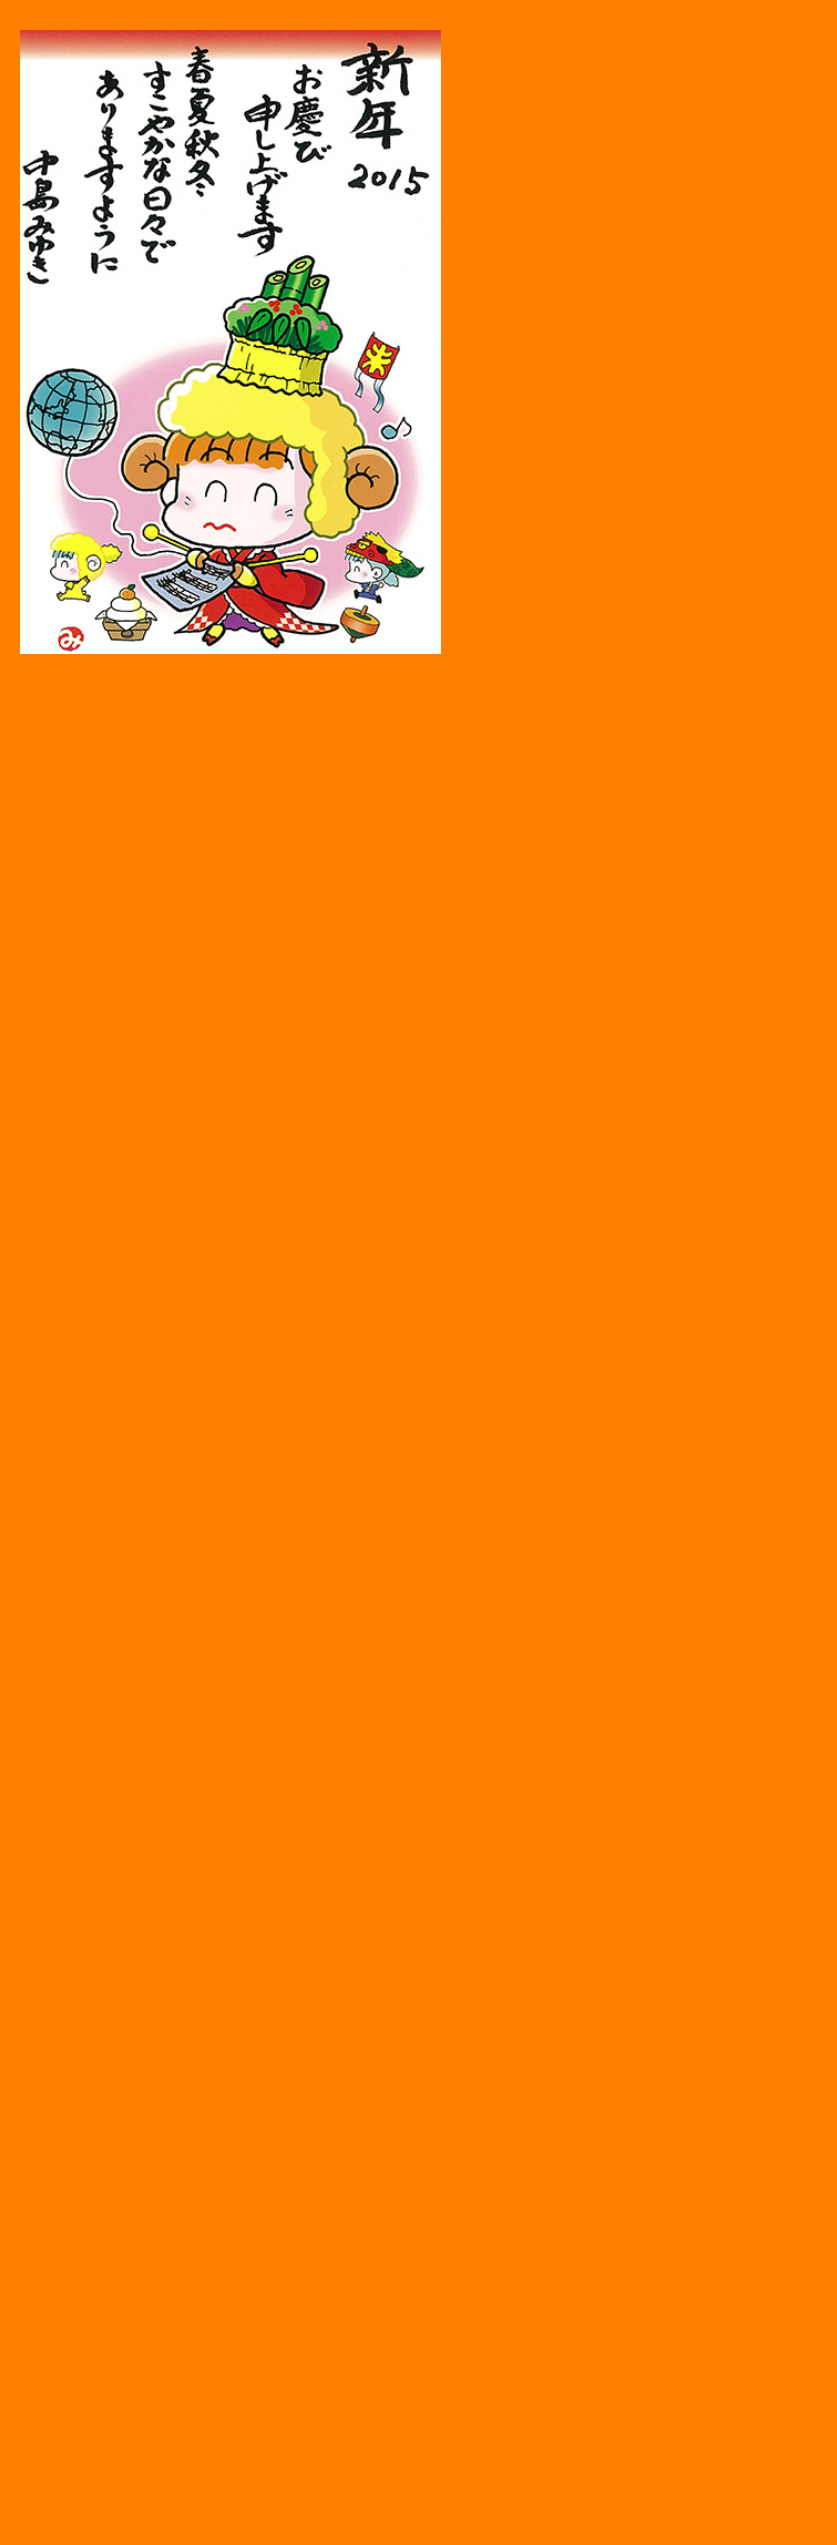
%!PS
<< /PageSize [837 2545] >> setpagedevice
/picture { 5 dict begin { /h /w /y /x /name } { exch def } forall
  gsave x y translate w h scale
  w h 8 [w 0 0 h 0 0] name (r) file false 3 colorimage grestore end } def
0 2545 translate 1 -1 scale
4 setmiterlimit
1 0.502 0 setrgbcolor
0 0 837 2545 rectfill
(img1.rgb) 20 30 421 624 picture
showpage
